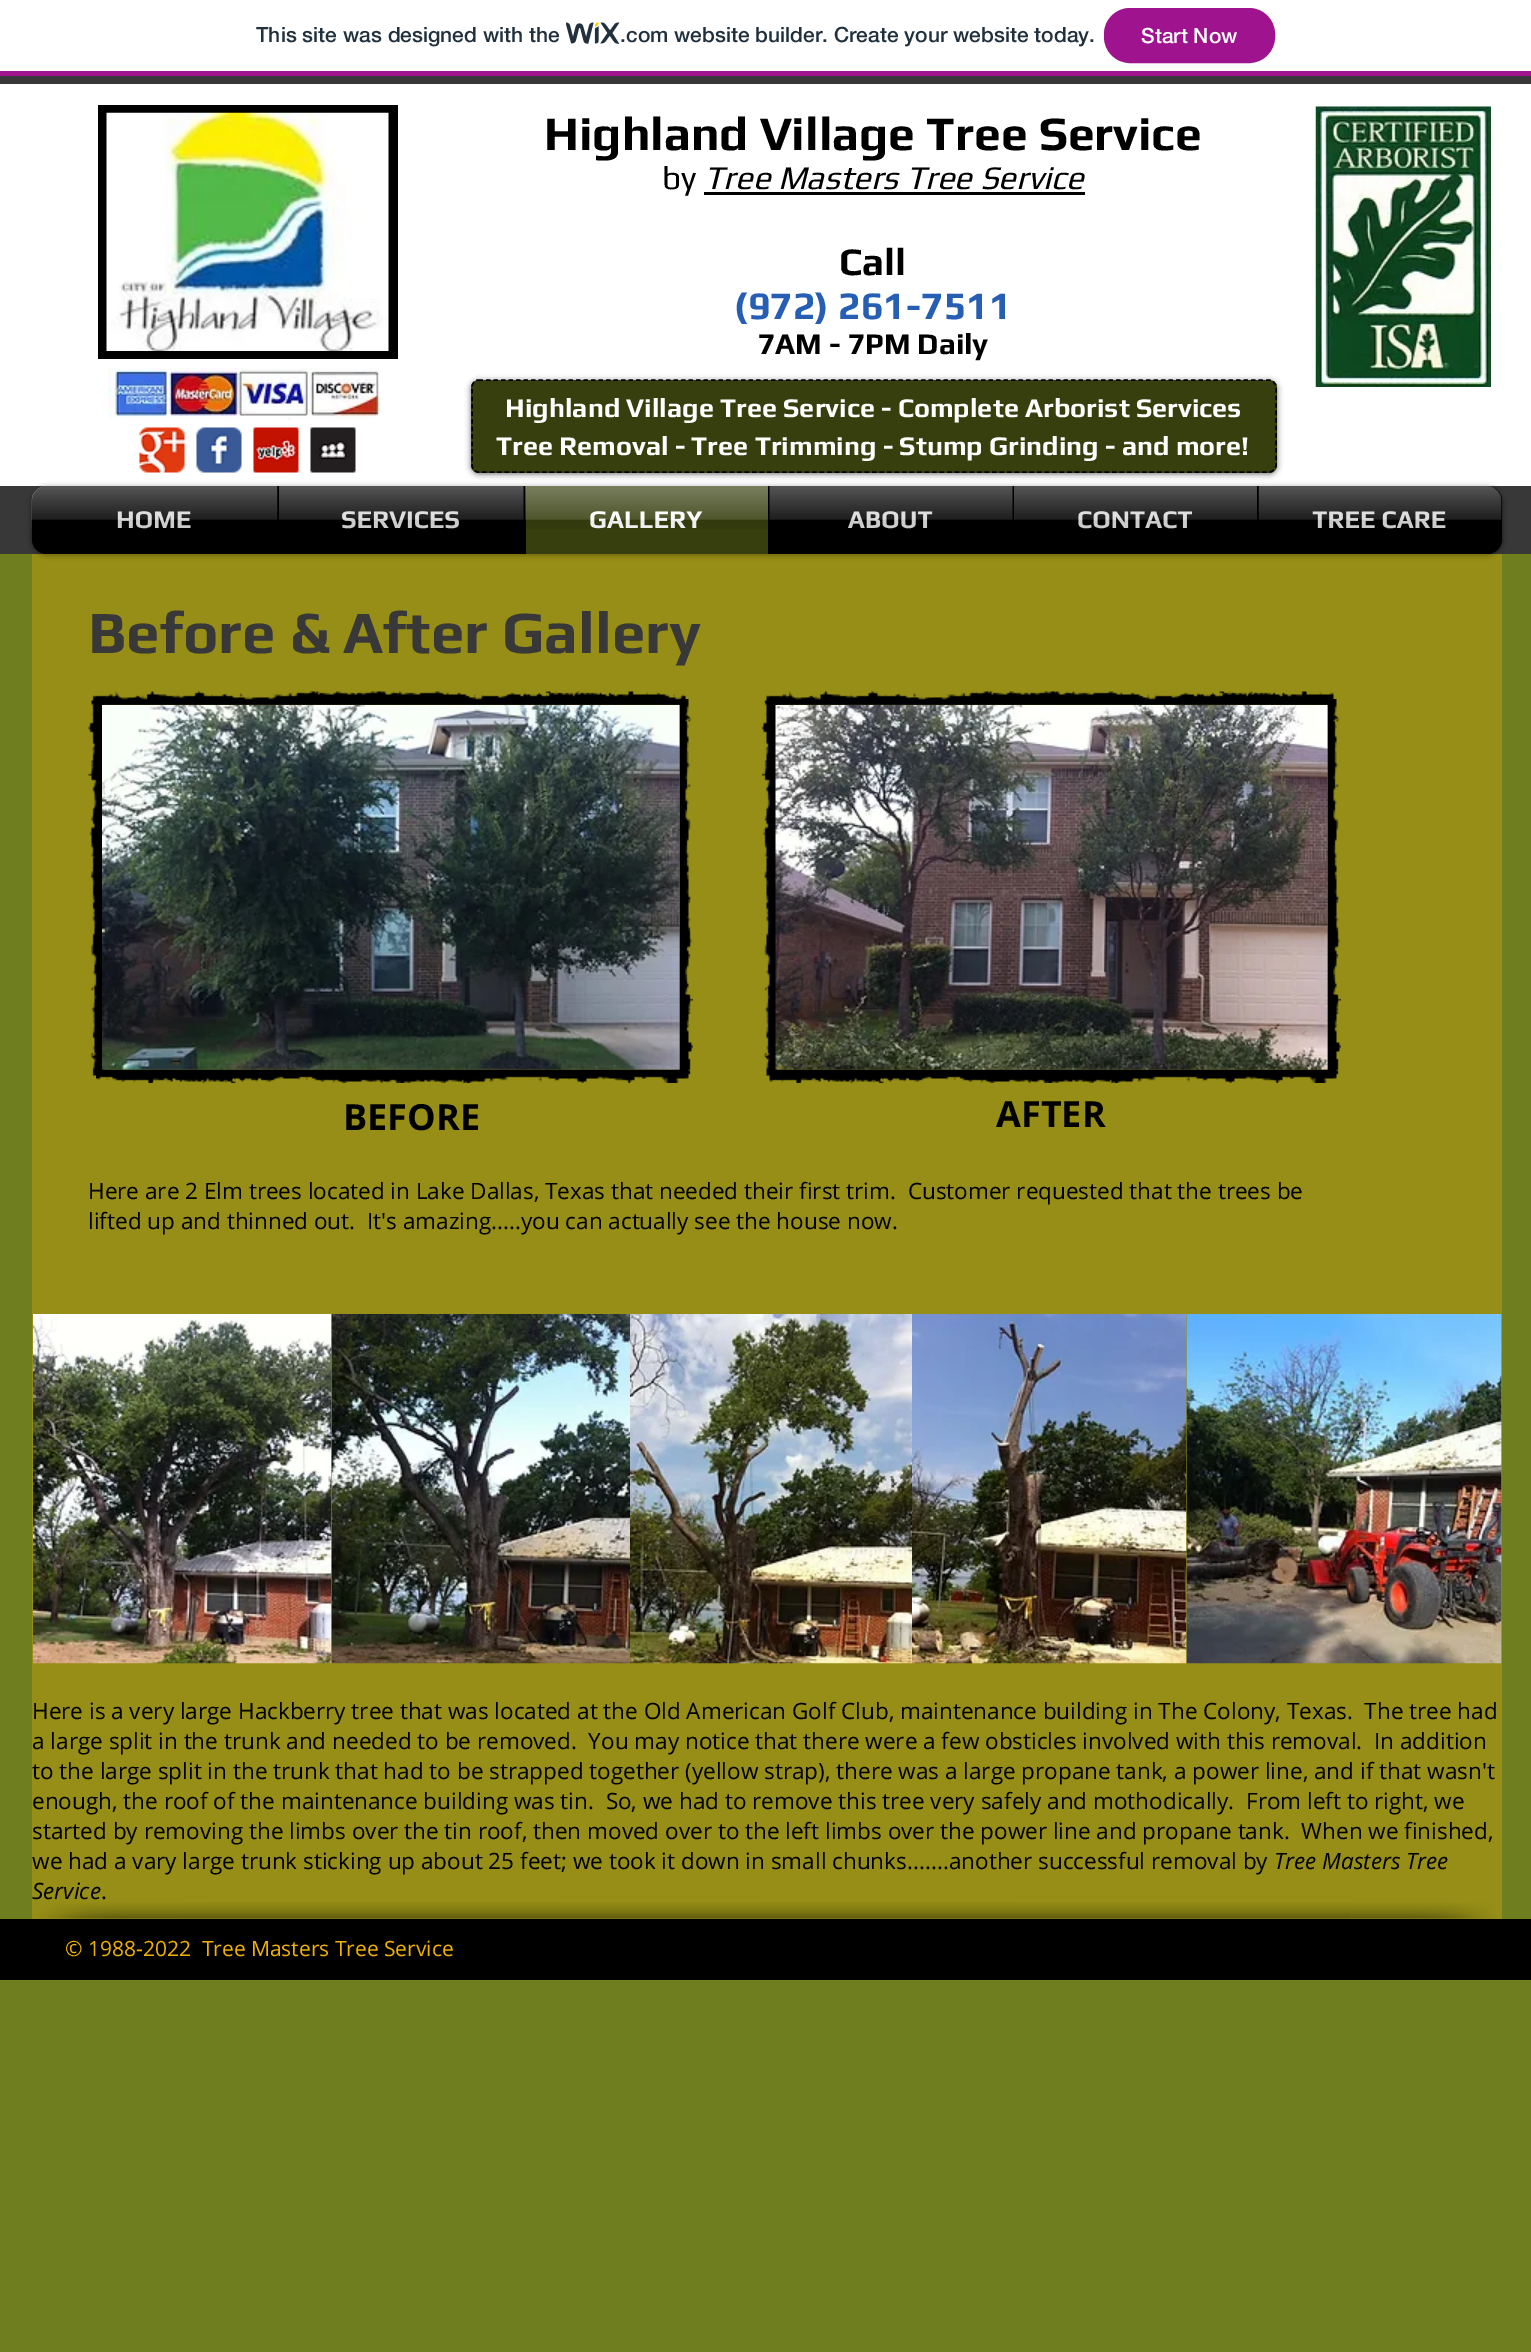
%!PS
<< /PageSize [1531 2352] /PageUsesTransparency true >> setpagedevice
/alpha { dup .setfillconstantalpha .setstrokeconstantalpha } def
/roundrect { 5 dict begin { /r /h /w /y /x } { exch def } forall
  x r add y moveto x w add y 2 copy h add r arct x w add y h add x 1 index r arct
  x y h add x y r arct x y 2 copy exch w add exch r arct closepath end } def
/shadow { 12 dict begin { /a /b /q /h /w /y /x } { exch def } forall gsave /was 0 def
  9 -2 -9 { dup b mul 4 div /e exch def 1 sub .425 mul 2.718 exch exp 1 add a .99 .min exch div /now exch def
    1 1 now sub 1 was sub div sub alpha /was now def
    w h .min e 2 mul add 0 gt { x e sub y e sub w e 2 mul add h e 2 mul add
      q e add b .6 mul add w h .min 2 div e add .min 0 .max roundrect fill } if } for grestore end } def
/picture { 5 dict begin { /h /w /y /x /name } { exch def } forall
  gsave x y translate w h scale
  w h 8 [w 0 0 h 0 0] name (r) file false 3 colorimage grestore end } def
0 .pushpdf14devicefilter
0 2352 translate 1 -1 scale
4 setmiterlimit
1 setgray
0 0 1531 2352 rectfill
0.627 0.075 0.557 setrgbcolor
0 71 1531 5 rectfill
/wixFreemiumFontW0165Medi-Medium [21 0 0 -21 0 0] selectfont
0.125 0.188 0.235 setrgbcolor
256 42 moveto (This site was designed with the) show
(img1.rgb) 566 22 54 22 picture
620 42 moveto (.com website builder. Create your website today.) show
0.627 0.075 0.557 setrgbcolor
1105 9 169 53 25 roundrect gsave fill grestore
2 setlinewidth
stroke
1 setgray
1141 43 moveto (Start Now) show
0.22 setgray
0 76 1531 8 rectfill
0 setgray
98 105 300 254 rectfill
(img2.rgb) 106 112 283 239 picture
/Play-Bold [48 0 0 -48 0 0] selectfont
544 150 moveto (Highland Village Tree Service) show
/Play-Regular [33 0 0 -33 0 0] selectfont
662 189 moveto (by) show
/Play-Italic [33 0 0 -33 0 0] selectfont
704 189 moveto (Tree Masters Tree Service) show
704 192 381 3 rectfill
/Play-Bold [39 0 0 -39 0 0] selectfont
839 275 moveto (Call) show
0.145 0.369 0.702 setrgbcolor
734 319 moveto (\(972\) 261-7511) show
/Play-Bold [30 0 0 -30 0 0] selectfont
0 setgray
758 354 moveto (7AM - 7PM Daily) show
(img3.rgb) 1315 106 176 281 picture
(img4.rgb) 108 367 276 53 picture
471 381 806 93 8 3 0.6 shadow
0.216 0.247 0.059 setrgbcolor
471 380 806 93 8 roundrect fill
0 setgray
1.5 setlinewidth
[4.5 3] 0 setdash
newpath 478.5 380 moveto 1269 380 lineto 1272.5 380 1276 383.5 1276 387 curveto 1276 465 lineto 1276 468.5 1272.5 472 1269 472 curveto 478.5 472 lineto 475 472 472 468.5 472 465 curveto 472 387 lineto 472 383.5 475 380 478.5 380 curveto closepath stroke
/Play-Bold [27 0 0 -27 0 0] selectfont
1 setgray
505 417 moveto (Highland Village Tree Service - Complete Arborist Services) show
496 455 moveto (Tree Removal - Tree Trimming - Stump Grinding - and more!) show
(img5.rgb) 139 427 46 46 picture
(img6.rgb) 196 427 46 46 picture
(img7.rgb) 253 427 46 46 picture
(img8.rgb) 310 427 46 46 picture
0.22 setgray
0 486 1531 68 rectfill
0.435 0.498 0.122 setrgbcolor
0 554 1531 1798 rectfill
0 setgray
32 488 1470 67 15 3 0.6 shadow
(img9.rgb) 31 486 1471 34 picture
newpath 47 486 moveto 278 486 lineto 278 554 lineto 47 554 lineto 38.5 554 32 547.5 32 539 curveto 32 501 lineto 32 492.5 38.5 486 47 486 curveto closepath fill
/Play-Bold [25.5 0 0 -25.5 0 0] selectfont
0.851 setgray
116 528 moveto (HOME) show
(img10.rgb) 31 486 247 42 picture
0 setgray
278 486 248 68 rectfill
0.851 setgray
341 528 moveto (SERVICES) show
(img11.rgb) 279 486 245 42 picture
0.216 0.247 0.059 setrgbcolor
526 486 242 68 rectfill
1 setgray
589 528 moveto (GALLERY) show
(img12.rgb) 525 486 243 43 picture
0 setgray
768 486 489 68 rectfill
0.851 setgray
848 528 moveto (ABOUT) show
(img13.rgb) 769 486 244 42 picture
1077 528 moveto (CONTACT) show
(img14.rgb) 1014 486 243 42 picture
0 setgray
newpath 1257 486 moveto 1487 486 lineto 1495.5 486 1502 492.5 1502 501 curveto 1502 539 lineto 1502 547.5 1495.5 554 1487 554 curveto 1257 554 lineto closepath fill
0.851 setgray
1312 528 moveto (TREE CARE) show
(img15.rgb) 1258 486 244 42 picture
0.3 alpha
0.945 0.698 0.004 setrgbcolor
32 554 1470 1365 rectfill
/Play-Bold [60 0 0 -60 0 0] selectfont
1 alpha
0.22 setgray
88 653 moveto (Before & After Gallery) show
(img18.rgb) 96 699 597 384 picture
(img16.rgb) 88 691 598 385 picture
(img17.rgb) 102 705 578 365 picture
(img21.rgb) 769 699 572 384 picture
(img19.rgb) 762 691 572 385 picture
(img20.rgb) 775 705 553 365 picture
/OpenSans-Bold [36 0 0 -36 0 0] selectfont
0 setgray
343 1130 moveto (BEFORE) show
996 1127 moveto (AFTER) show
/OpenSans-Regular [22.5 0 0 -22.5 0 0] selectfont
88 1199 moveto (Here are 2 Elm trees located in Lake Dallas, Texas that needed their first trim.  Customer requested that the trees be) show
88 1229 moveto (lifted up and thinned out.  It's amazing.....you can actually see the house now.) show
(img22.rgb) 33 1314 299 350 picture
(img23.rgb) 331 1314 299 350 picture
(img24.rgb) 630 1314 282 350 picture
(img25.rgb) 912 1314 275 350 picture
(img26.rgb) 1186 1314 316 350 picture
32 1719 moveto (Here is a very large Hackberry tree that was located at the Old American Golf Club, maintenance building in The Colony, Texas.  The tree had) show
32 1749 moveto (a large split in the trunk and needed to be removed.  You may notice that there were a few obsticles involved with this removal.  In addition) show
32 1779 moveto (to the large split in the trunk that had to be strapped together \(yellow strap\), there was a large propane tank, a power line, and if that wasn't) show
32 1809 moveto (enough, the roof of the maintenance building was tin.  So, we had to remove this tree very safely and mothodically.  From left to right, we) show
32 1839 moveto (started by removing the limbs over the tin roof, then moved over to the left limbs over the power line and propane tank.  When we finished,) show
32 1869 moveto (we had a vary large trunk sticking up about 25 feet; we took it down in small chunks.......another successful removal by) show
/OpenSans-Italic [22.5 0 0 -22.5 0 0] selectfont
1274 1869 moveto (Tree Masters Tree) show
32 1899 moveto (Service) show
/OpenSans-Regular [22.5 0 0 -22.5 0 0] selectfont
101 1899 moveto (.) show
0 1919 1531 61 rectfill
(img27.rgb) 39 1902 143 17 picture
(img28.rgb) 181 1902 1171 17 picture
(img29.rgb) 1351 1902 144 17 picture
/OpenSans-Regular [21 0 0 -21 0 0] selectfont
0.945 0.698 0.004 setrgbcolor
65 1956 moveto (© 1988-2022  Tree Masters Tree Service) show
.poppdf14devicefilter showpage
